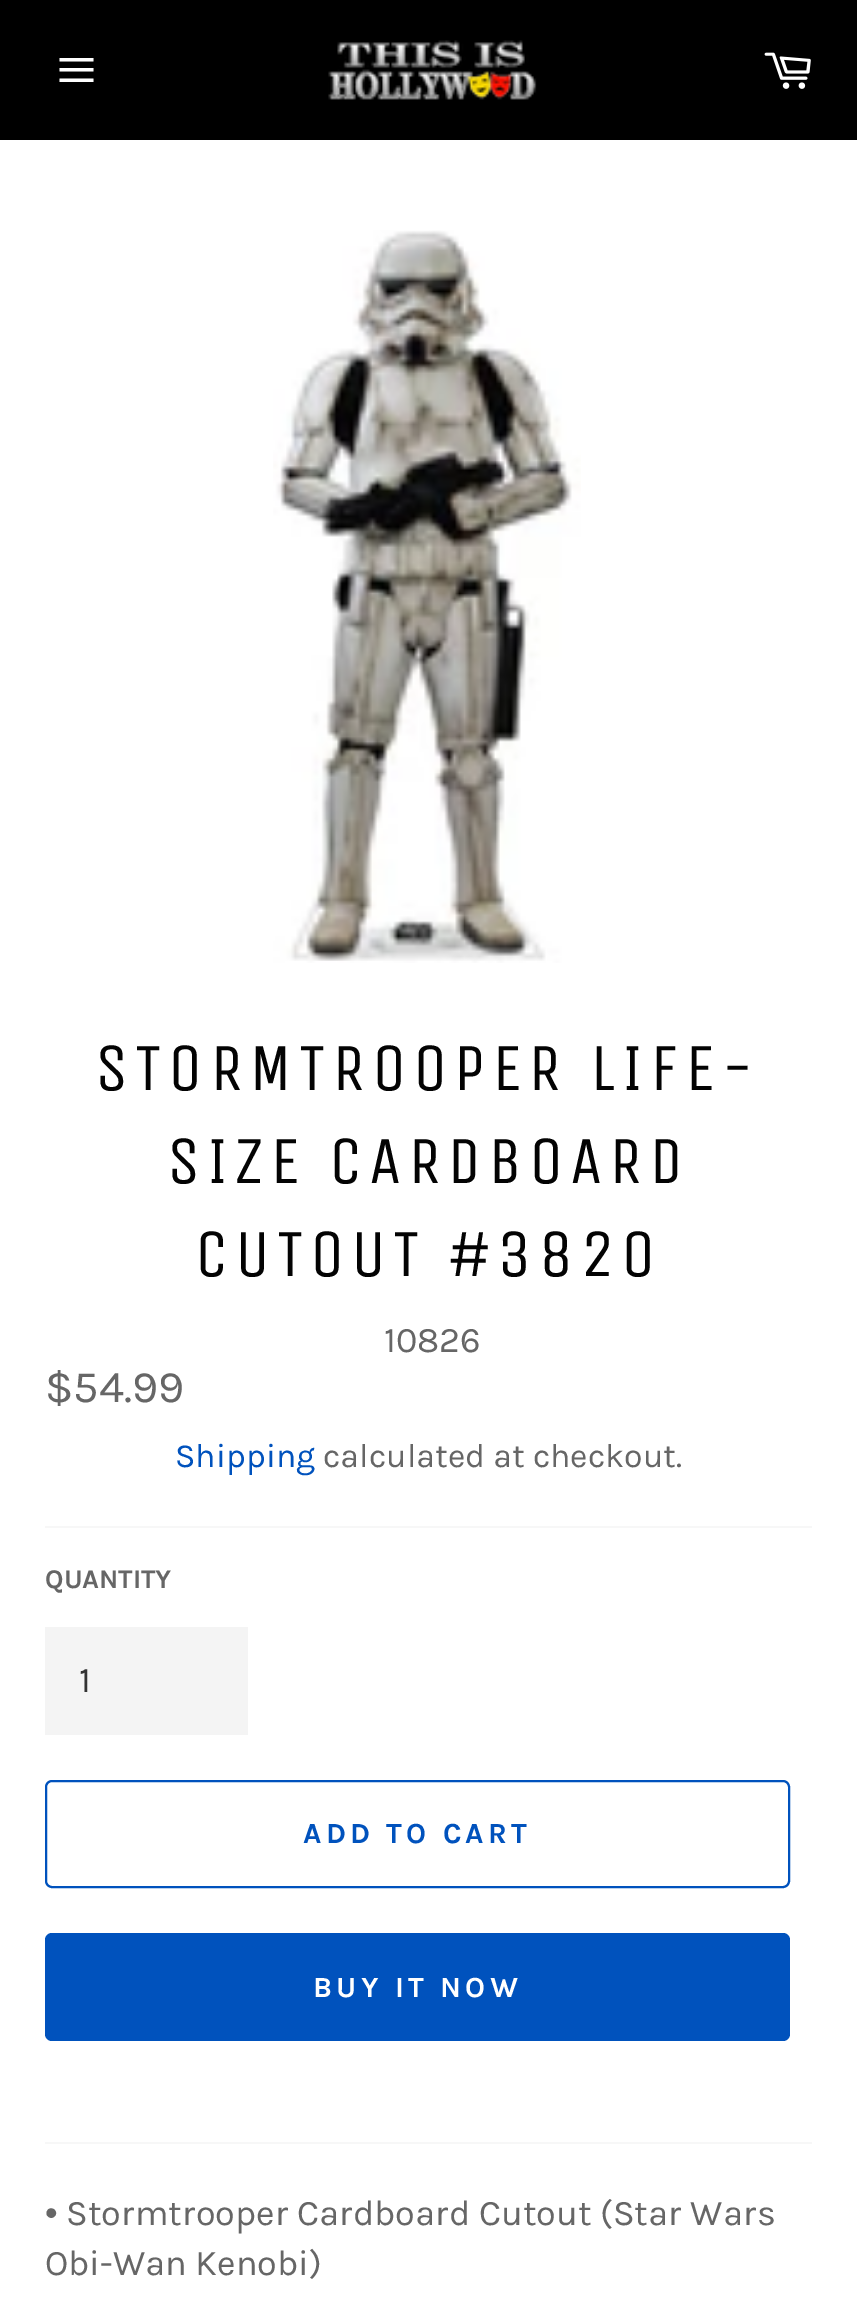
%!PS
<< /PageSize [857 2311] >> setpagedevice
/roundrect { 5 dict begin { /r /h /w /y /x } { exch def } forall
  x r add y moveto x w add y 2 copy h add r arct x w add y h add x 1 index r arct
  x y h add x y r arct x y 2 copy exch w add exch r arct closepath end } def
/picture { 5 dict begin { /h /w /y /x /name } { exch def } forall
  gsave x y translate w h scale
  w h 8 [w 0 0 h 0 0] name (r) file false 3 colorimage grestore end } def
0 2311 translate 1 -1 scale
4 setmiterlimit
0 setgray
0 0 857 2311 rectfill
1 setgray
newpath 59.5 68 moveto 93.5 68 lineto 93.5 71.5 lineto 59.5 71.5 lineto closepath 59.5 58 moveto 93.5 58 lineto 93.5 61.5 lineto 59.5 61.5 lineto closepath 59.5 78.5 moveto 93.5 78.5 lineto 93.5 82 lineto 59.5 82 lineto closepath fill
(img1.rgb) 328 40 209 60 picture
(img2.rgb) 764 52 47 37 picture
0 140 857 2171 rectfill
(img3.rgb) 273 230 308 733 picture
/UnicaOne-Regular [67.5 0 0 -67.5 0 0] selectfont
0.012 setgray
95 1090 moveto 6.75 0 (STORMTROOPER LIFE-) ashow
167 1183 moveto 6.75 0 (SIZE CARDBOARD) ashow
195 1276 moveto 6.75 0 (CUTOUT #3820) ashow
/Karla-Regular [36 0 0 -36 0 0] selectfont
0.4 setgray
384 1352 moveto (10826) show
/Karla-Regular [45 0 0 -45 0 0] selectfont
45 1402 moveto ($54.99) show
/Karla-Regular [33.75 0 0 -33.75 0 0] selectfont
0 0.322 0.741 setrgbcolor
175 1467 moveto (Shipping) show
0.4 setgray
323 1467 moveto (calculated at checkout.) show
0.969 setgray
45 1526 767 2 rectfill
/Karla-Bold [27 0 0 -27 0 0] selectfont
0.4 setgray
45 1588 moveto (QUANTITY) show
0.957 setgray
45 1627 203 108 rectfill
/Karla-Regular [36 0 0 -36 0 0] selectfont
0.2 setgray
79 1692 moveto (1) show
0 0.322 0.741 setrgbcolor
2 setlinewidth
46 1781 743 106 6 roundrect stroke
/Karla-Bold [29.25 0 0 -29.25 0 0] selectfont
303 1843 moveto 4.4 0 (ADD TO CART) ashow
45 1933 745 108 7 roundrect fill
1 setgray
313 1997 moveto 4.4 0 (BUY IT NOW) ashow
0.969 setgray
45 2142 767 2 rectfill
/LiberationSans-Regular [36 0 0 -36 0 0] selectfont
0.4 setgray
45 2225 moveto (•) show
/Karla-Regular [36 0 0 -36 0 0] selectfont
66 2225 moveto (Stormtrooper Cardboard Cutout \(Star Wars) show
45 2275 moveto (Obi-Wan Kenobi\)) show
showpage
